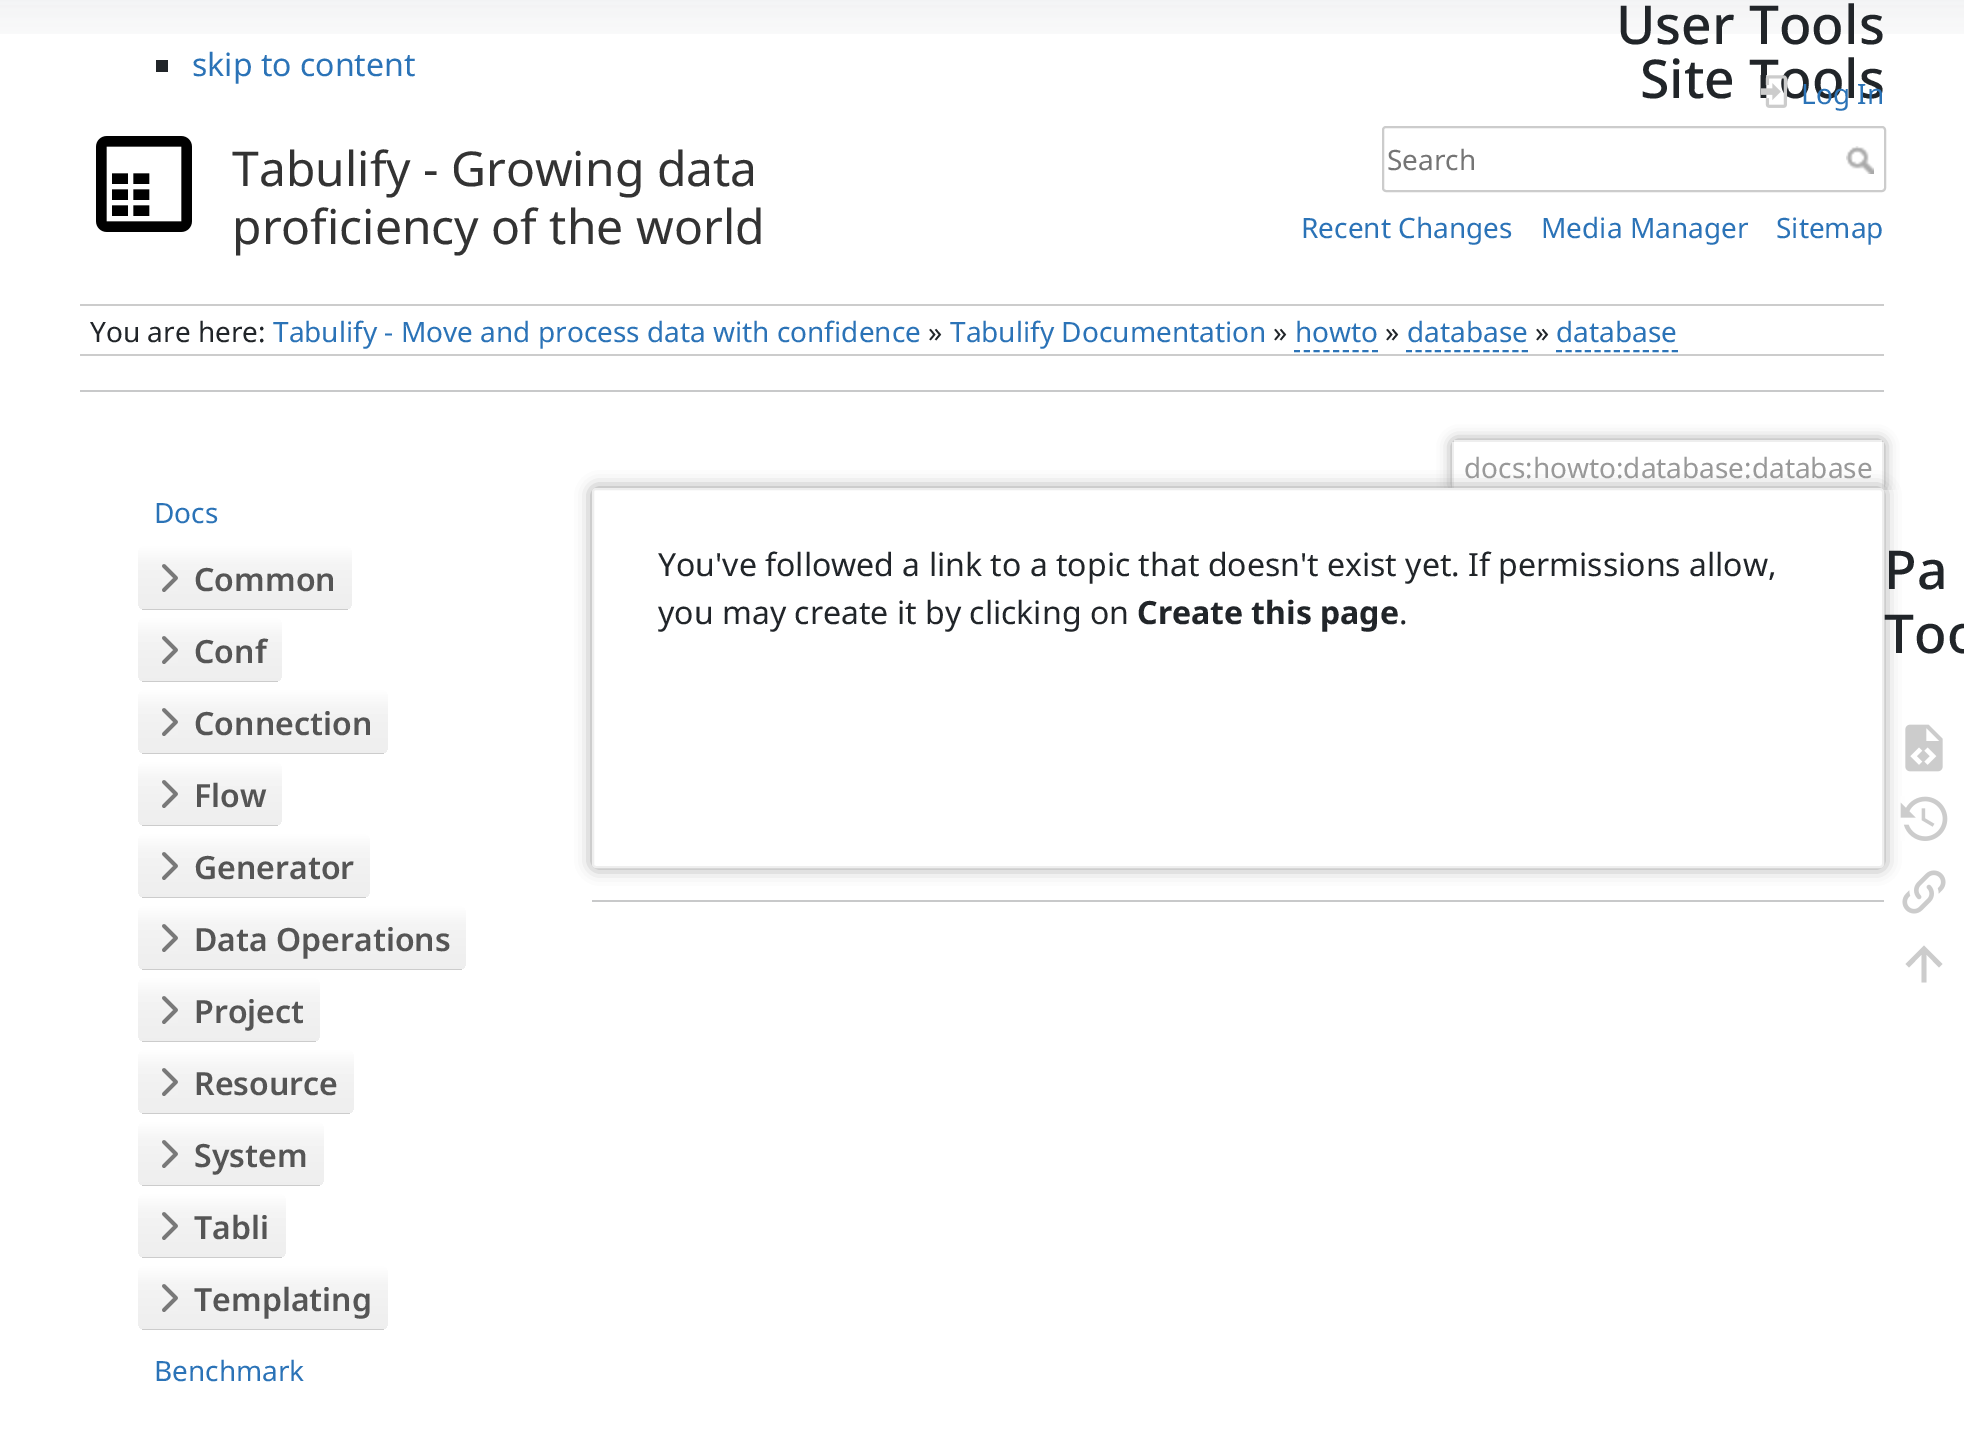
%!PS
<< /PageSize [1964 1437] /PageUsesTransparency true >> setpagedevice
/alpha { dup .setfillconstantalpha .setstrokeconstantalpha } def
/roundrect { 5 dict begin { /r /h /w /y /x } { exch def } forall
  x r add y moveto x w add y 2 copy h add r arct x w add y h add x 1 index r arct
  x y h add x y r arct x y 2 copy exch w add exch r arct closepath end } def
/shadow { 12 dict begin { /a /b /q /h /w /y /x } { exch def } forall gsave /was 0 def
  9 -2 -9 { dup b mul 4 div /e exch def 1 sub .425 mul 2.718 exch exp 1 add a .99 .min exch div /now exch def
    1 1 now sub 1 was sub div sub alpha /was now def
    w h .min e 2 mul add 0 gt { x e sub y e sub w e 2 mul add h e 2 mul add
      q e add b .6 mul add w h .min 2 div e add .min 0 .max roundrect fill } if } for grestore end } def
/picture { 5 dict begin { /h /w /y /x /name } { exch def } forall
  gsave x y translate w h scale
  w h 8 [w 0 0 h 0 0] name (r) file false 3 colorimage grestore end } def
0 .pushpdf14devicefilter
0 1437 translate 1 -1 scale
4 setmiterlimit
1 setgray
0 0 1964 1437 rectfill
(img1.rgb) 0 0 1964 34 picture
0.129 0.145 0.161 setrgbcolor
156 60 12 12 rectfill
/NotoSans-Regular [32 0 0 -32 0 0] selectfont
0.169 0.451 0.718 setrgbcolor
192 76 moveto (skip to content) show
(img2.rgb) 96 136 96 96 picture
/NotoSans-Regular [48 0 0 -48 0 0] selectfont
0.2 setgray
232 186 moveto (Tabulify - Growing data) show
232 244 moveto (proficiency of the world) show
/NotoSans-Medium [53.5 0 0 -53.5 0 0] selectfont
0.129 0.145 0.161 setrgbcolor
1616 44 moveto (User Tools) show
1640 98 moveto (Site Tools) show
(img3.rgb) 1760 75 28 33 picture
/NotoSans-Regular [28 0 0 -28 0 0] selectfont
0.169 0.451 0.718 setrgbcolor
1801 104 moveto (Log In) show
0.8 setgray
2 setlinewidth
1383 127 502 64 3 roundrect stroke
0.459 setgray
1387 170 moveto (Search) show
(img4.rgb) 1846 146 28 28 picture
0.169 0.451 0.718 setrgbcolor
1301 238 moveto (Recent Changes) show
1541 238 moveto (Media Manager) show
1776 238 moveto (Sitemap) show
0.8 setgray
80 304 1804 2 rectfill
80 354 1804 2 rectfill
0.129 0.145 0.161 setrgbcolor
90 342 moveto (You are here:) show
0.169 0.451 0.718 setrgbcolor
273 342 moveto (Tabulify - Move and process data with confidence) show
0.129 0.145 0.161 setrgbcolor
928 342 moveto (») show
0.169 0.451 0.718 setrgbcolor
950 342 moveto (Tabulify Documentation) show
0.129 0.145 0.161 setrgbcolor
1273 342 moveto (») show
0.169 0.451 0.718 setrgbcolor
1295 342 moveto (howto) show
[6 3.76] 0 setdash
newpath 1294 351 moveto 1378 351 lineto stroke
0.129 0.145 0.161 setrgbcolor
1385 342 moveto (») show
0.169 0.451 0.718 setrgbcolor
1407 342 moveto (database) show
[6 3.66] 0 setdash
newpath 1406 351 moveto 1528 351 lineto stroke
0.129 0.145 0.161 setrgbcolor
1535 342 moveto (») show
0.169 0.451 0.718 setrgbcolor
1556 342 moveto (database) show
newpath 1556 351 moveto 1678 351 lineto stroke
0.784 0.788 0.792 setrgbcolor
80 390 1804 2 rectfill
0.169 0.451 0.718 setrgbcolor
154 523 moveto (Docs) show
gsave 138 546 214 64 8 roundrect clip newpath
<< /ShadingType 2 /ColorSpace /DeviceRGB /Coords [245 546 245 610] /Extend [true true] /Function << /FunctionType 3 /Domain [0 1] /Functions [<< /FunctionType 2 /Domain [0 1] /C0 [1 1 1] /C1 [0.957 0.957 0.957] /N 1 >> << /FunctionType 2 /Domain [0 1] /C0 [0.957 0.957 0.957] /C1 [0.933 0.933 0.933] /N 1 >> << /FunctionType 2 /Domain [0 1] /C0 [0.8 0.8 0.8] /C1 [0.8 0.8 0.8] /N 1 >>] /Bounds [0.3 0.99] /Encode [0 1 0 1 0 1] >> >> shfill grestore
(img5.rgb) 162 564 16 28 picture
/NotoSans-SemiBold [32 0 0 -32 0 0] selectfont
0.333 setgray
194 591 moveto (Common) show
gsave 138 618 144 64 8 roundrect clip newpath
<< /ShadingType 2 /ColorSpace /DeviceRGB /Coords [210 618 210 682] /Extend [true true] /Function << /FunctionType 3 /Domain [0 1] /Functions [<< /FunctionType 2 /Domain [0 1] /C0 [1 1 1] /C1 [0.957 0.957 0.957] /N 1 >> << /FunctionType 2 /Domain [0 1] /C0 [0.957 0.957 0.957] /C1 [0.933 0.933 0.933] /N 1 >> << /FunctionType 2 /Domain [0 1] /C0 [0.8 0.8 0.8] /C1 [0.8 0.8 0.8] /N 1 >>] /Bounds [0.3 0.99] /Encode [0 1 0 1 0 1] >> >> shfill grestore
(img5.rgb) 162 636 16 28 picture
194 663 moveto (Conf) show
gsave 138 690 250 64 8 roundrect clip newpath
<< /ShadingType 2 /ColorSpace /DeviceRGB /Coords [263 690 263 754] /Extend [true true] /Function << /FunctionType 3 /Domain [0 1] /Functions [<< /FunctionType 2 /Domain [0 1] /C0 [1 1 1] /C1 [0.957 0.957 0.957] /N 1 >> << /FunctionType 2 /Domain [0 1] /C0 [0.957 0.957 0.957] /C1 [0.933 0.933 0.933] /N 1 >> << /FunctionType 2 /Domain [0 1] /C0 [0.8 0.8 0.8] /C1 [0.8 0.8 0.8] /N 1 >>] /Bounds [0.3 0.99] /Encode [0 1 0 1 0 1] >> >> shfill grestore
(img5.rgb) 162 708 16 28 picture
194 735 moveto (Connection) show
gsave 138 762 144 64 8 roundrect clip newpath
<< /ShadingType 2 /ColorSpace /DeviceRGB /Coords [210 762 210 826] /Extend [true true] /Function << /FunctionType 3 /Domain [0 1] /Functions [<< /FunctionType 2 /Domain [0 1] /C0 [1 1 1] /C1 [0.957 0.957 0.957] /N 1 >> << /FunctionType 2 /Domain [0 1] /C0 [0.957 0.957 0.957] /C1 [0.933 0.933 0.933] /N 1 >> << /FunctionType 2 /Domain [0 1] /C0 [0.8 0.8 0.8] /C1 [0.8 0.8 0.8] /N 1 >>] /Bounds [0.3 0.99] /Encode [0 1 0 1 0 1] >> >> shfill grestore
(img5.rgb) 162 780 16 28 picture
194 807 moveto (Flow) show
gsave 138 834 232 64 8 roundrect clip newpath
<< /ShadingType 2 /ColorSpace /DeviceRGB /Coords [254 834 254 898] /Extend [true true] /Function << /FunctionType 3 /Domain [0 1] /Functions [<< /FunctionType 2 /Domain [0 1] /C0 [1 1 1] /C1 [0.957 0.957 0.957] /N 1 >> << /FunctionType 2 /Domain [0 1] /C0 [0.957 0.957 0.957] /C1 [0.933 0.933 0.933] /N 1 >> << /FunctionType 2 /Domain [0 1] /C0 [0.8 0.8 0.8] /C1 [0.8 0.8 0.8] /N 1 >>] /Bounds [0.3 0.99] /Encode [0 1 0 1 0 1] >> >> shfill grestore
(img5.rgb) 162 852 16 28 picture
194 879 moveto (Generator) show
gsave 138 906 328 64 8 roundrect clip newpath
<< /ShadingType 2 /ColorSpace /DeviceRGB /Coords [302 906 302 970] /Extend [true true] /Function << /FunctionType 3 /Domain [0 1] /Functions [<< /FunctionType 2 /Domain [0 1] /C0 [1 1 1] /C1 [0.957 0.957 0.957] /N 1 >> << /FunctionType 2 /Domain [0 1] /C0 [0.957 0.957 0.957] /C1 [0.933 0.933 0.933] /N 1 >> << /FunctionType 2 /Domain [0 1] /C0 [0.8 0.8 0.8] /C1 [0.8 0.8 0.8] /N 1 >>] /Bounds [0.3 0.99] /Encode [0 1 0 1 0 1] >> >> shfill grestore
(img5.rgb) 162 924 16 28 picture
194 951 moveto (Data Operations) show
gsave 138 978 182 64 8 roundrect clip newpath
<< /ShadingType 2 /ColorSpace /DeviceRGB /Coords [229 978 229 1042] /Extend [true true] /Function << /FunctionType 3 /Domain [0 1] /Functions [<< /FunctionType 2 /Domain [0 1] /C0 [1 1 1] /C1 [0.957 0.957 0.957] /N 1 >> << /FunctionType 2 /Domain [0 1] /C0 [0.957 0.957 0.957] /C1 [0.933 0.933 0.933] /N 1 >> << /FunctionType 2 /Domain [0 1] /C0 [0.8 0.8 0.8] /C1 [0.8 0.8 0.8] /N 1 >>] /Bounds [0.3 0.99] /Encode [0 1 0 1 0 1] >> >> shfill grestore
(img5.rgb) 162 996 16 28 picture
194 1023 moveto (Project) show
gsave 138 1050 216 64 8 roundrect clip newpath
<< /ShadingType 2 /ColorSpace /DeviceRGB /Coords [246 1050 246 1114] /Extend [true true] /Function << /FunctionType 3 /Domain [0 1] /Functions [<< /FunctionType 2 /Domain [0 1] /C0 [1 1 1] /C1 [0.957 0.957 0.957] /N 1 >> << /FunctionType 2 /Domain [0 1] /C0 [0.957 0.957 0.957] /C1 [0.933 0.933 0.933] /N 1 >> << /FunctionType 2 /Domain [0 1] /C0 [0.8 0.8 0.8] /C1 [0.8 0.8 0.8] /N 1 >>] /Bounds [0.3 0.99] /Encode [0 1 0 1 0 1] >> >> shfill grestore
(img5.rgb) 162 1068 16 28 picture
194 1095 moveto (Resource) show
gsave 138 1122 186 64 8 roundrect clip newpath
<< /ShadingType 2 /ColorSpace /DeviceRGB /Coords [231 1122 231 1186] /Extend [true true] /Function << /FunctionType 3 /Domain [0 1] /Functions [<< /FunctionType 2 /Domain [0 1] /C0 [1 1 1] /C1 [0.957 0.957 0.957] /N 1 >> << /FunctionType 2 /Domain [0 1] /C0 [0.957 0.957 0.957] /C1 [0.933 0.933 0.933] /N 1 >> << /FunctionType 2 /Domain [0 1] /C0 [0.8 0.8 0.8] /C1 [0.8 0.8 0.8] /N 1 >>] /Bounds [0.3 0.99] /Encode [0 1 0 1 0 1] >> >> shfill grestore
(img5.rgb) 162 1140 16 28 picture
194 1167 moveto (System) show
gsave 138 1194 148 64 8 roundrect clip newpath
<< /ShadingType 2 /ColorSpace /DeviceRGB /Coords [212 1194 212 1258] /Extend [true true] /Function << /FunctionType 3 /Domain [0 1] /Functions [<< /FunctionType 2 /Domain [0 1] /C0 [1 1 1] /C1 [0.957 0.957 0.957] /N 1 >> << /FunctionType 2 /Domain [0 1] /C0 [0.957 0.957 0.957] /C1 [0.933 0.933 0.933] /N 1 >> << /FunctionType 2 /Domain [0 1] /C0 [0.8 0.8 0.8] /C1 [0.8 0.8 0.8] /N 1 >>] /Bounds [0.3 0.99] /Encode [0 1 0 1 0 1] >> >> shfill grestore
(img5.rgb) 162 1212 16 28 picture
194 1239 moveto (Tabli) show
gsave 138 1266 250 64 8 roundrect clip newpath
<< /ShadingType 2 /ColorSpace /DeviceRGB /Coords [263 1266 263 1330] /Extend [true true] /Function << /FunctionType 3 /Domain [0 1] /Functions [<< /FunctionType 2 /Domain [0 1] /C0 [1 1 1] /C1 [0.957 0.957 0.957] /N 1 >> << /FunctionType 2 /Domain [0 1] /C0 [0.957 0.957 0.957] /C1 [0.933 0.933 0.933] /N 1 >> << /FunctionType 2 /Domain [0 1] /C0 [0.8 0.8 0.8] /C1 [0.8 0.8 0.8] /N 1 >>] /Bounds [0.3 0.99] /Encode [0 1 0 1 0 1] >> >> shfill grestore
(img5.rgb) 162 1284 16 28 picture
194 1311 moveto (Templating) show
/NotoSans-Regular [28 0 0 -28 0 0] selectfont
0.169 0.451 0.718 setrgbcolor
154 1381 moveto (Benchmark) show
gsave
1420 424 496 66 rectclip
newpath 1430 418 moveto 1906 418 lineto 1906 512 lineto 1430 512 lineto closepath 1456 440 moveto 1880 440 lineto 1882 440 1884 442 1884 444 curveto 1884 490 lineto 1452 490 lineto 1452 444 lineto 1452 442 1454 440 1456 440 curveto closepath eoclip newpath
0.6 setgray
1452 440 432 50 4 7 1 shadow
grestore
0.933 setgray
1454 440 428 2 rectfill
1882 442 2 48 rectfill
1452 442 2 48 rectfill
0.6 setgray
1464 478 moveto (docs:howto:database:database) show
592 488 1292 380 4 8 1 shadow
1 setgray
593 489 1290 378 3 roundrect gsave fill grestore
0.933 setgray
[] 0 setdash
stroke
/NotoSans-Regular [32 0 0 -32 0 0] selectfont
0.129 0.145 0.161 setrgbcolor
658 576 moveto (You've followed a link to a topic that doesn't exist yet. If permissions allow,) show
658 624 moveto (you may create it by clicking on) show
/NotoSans-Bold [32 0 0 -32 0 0] selectfont
1137 624 moveto (Create this page) show
/NotoSans-Regular [32 0 0 -32 0 0] selectfont
1399 624 moveto (.) show
0.784 0.788 0.792 setrgbcolor
592 900 1292 2 rectfill
/NotoSans-Medium [53.5 0 0 -53.5 0 0] selectfont
0.129 0.145 0.161 setrgbcolor
1884 589 moveto (Pa) show
1884 653 moveto (Too) show
(img6.rgb) 1905 724 38 48 picture
(img7.rgb) 1900 796 48 45 picture
(img8.rgb) 1902 870 44 44 picture
0.8 setgray
newpath 1926.5 982.5 moveto 1921.5 982.5 lineto 1921.5 954.5 lineto 1909 967.5 lineto 1905.5 964 lineto 1924 945.5 lineto 1942.5 964 lineto 1939 967.5 lineto 1926.5 954.5 lineto closepath fill
.poppdf14devicefilter showpage
